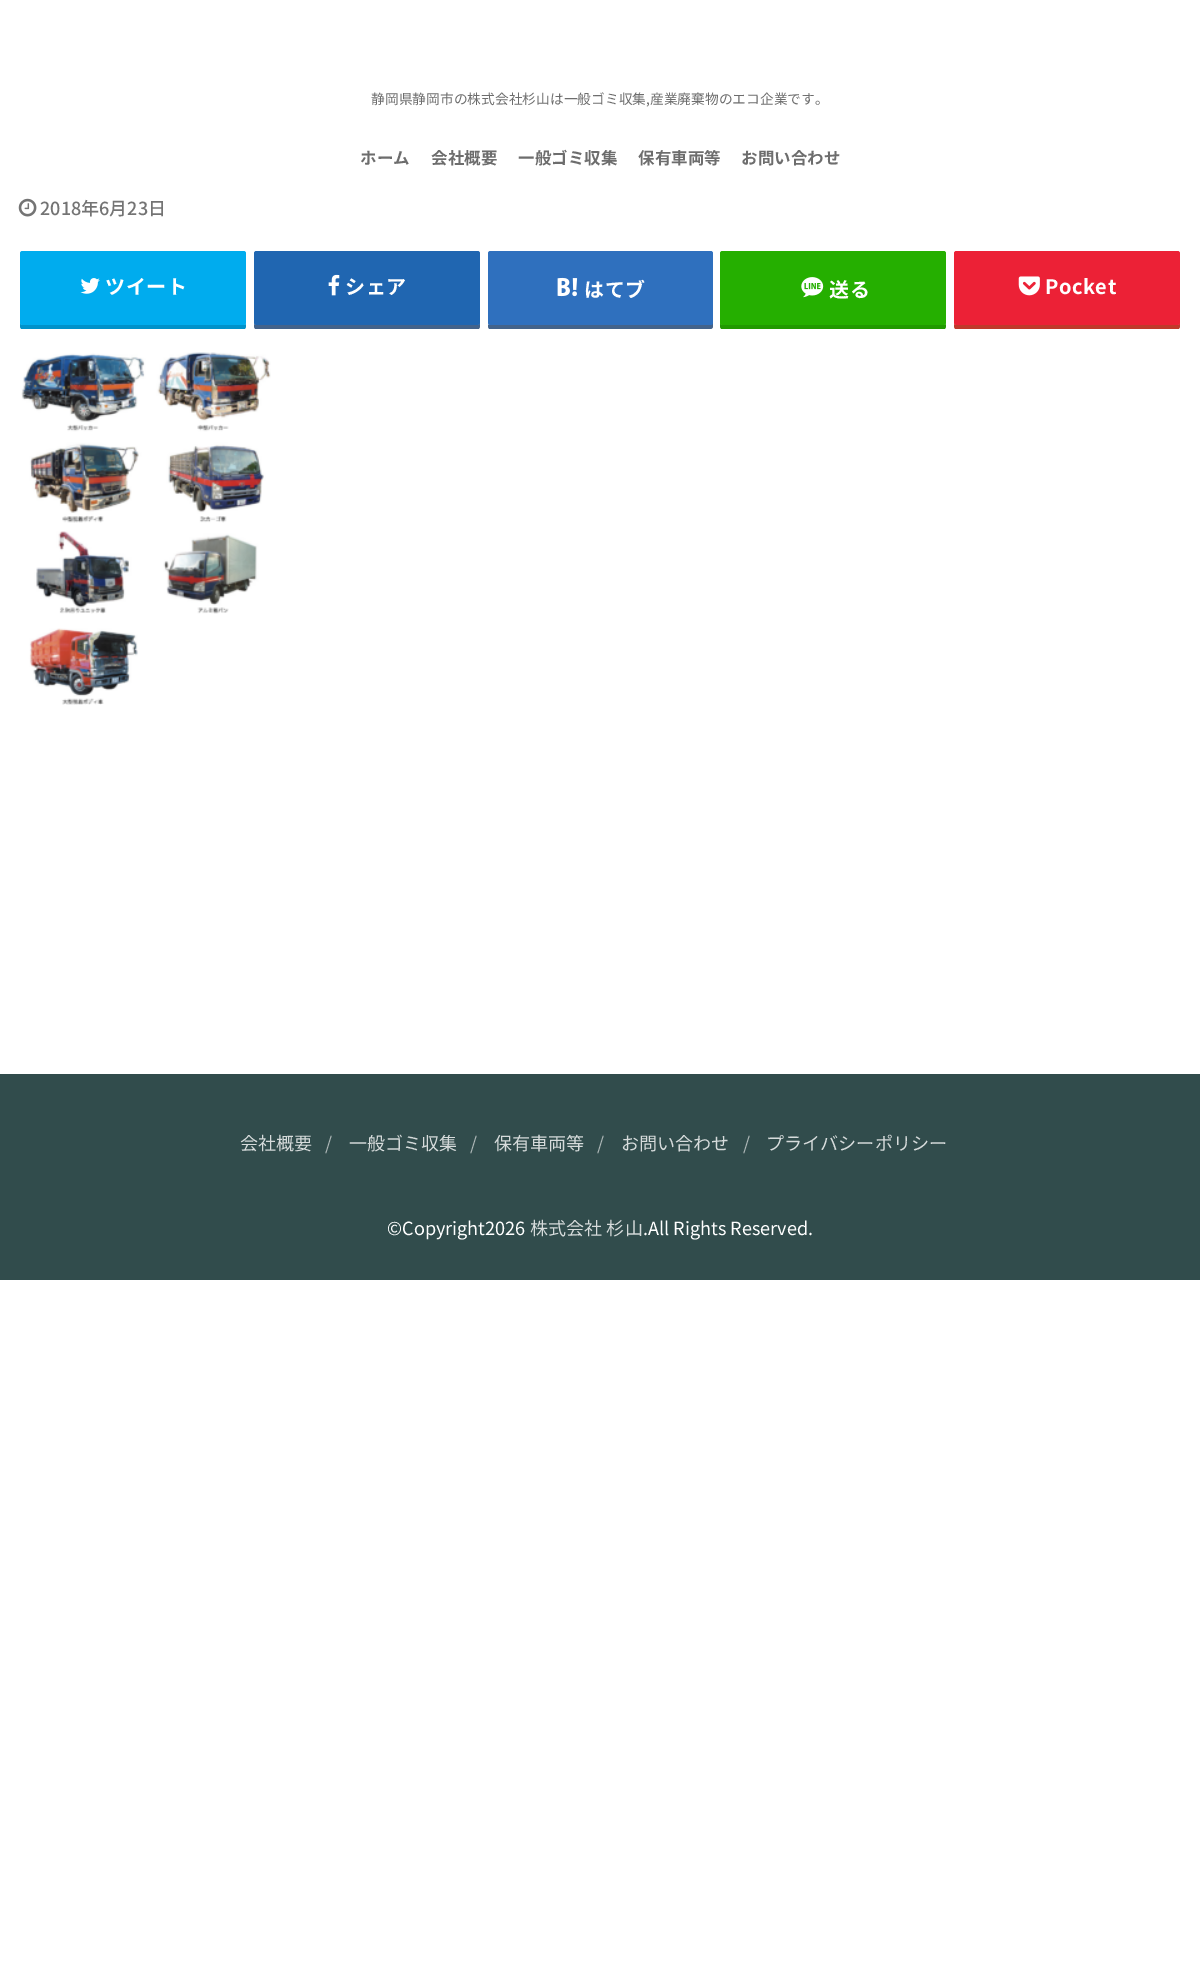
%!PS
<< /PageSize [1200 1978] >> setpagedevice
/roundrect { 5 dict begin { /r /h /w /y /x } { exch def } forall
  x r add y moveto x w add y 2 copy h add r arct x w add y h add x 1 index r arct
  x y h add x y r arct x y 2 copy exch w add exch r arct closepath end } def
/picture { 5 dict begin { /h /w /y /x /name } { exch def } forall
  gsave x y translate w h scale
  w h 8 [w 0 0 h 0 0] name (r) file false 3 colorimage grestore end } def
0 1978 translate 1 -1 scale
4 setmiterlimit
1 setgray
0 0 1200 1978 rectfill
/NotoSansJP-Regular [13.75 0 0 -13.75 0 0] selectfont
0.427 setgray
371 104 moveto (静岡県静岡市の株式会社杉山は一般ゴミ収集,産業廃棄物のエコ企業です。) show
/NotoSansJP-Bold [16.5 0 0 -16.5 0 0] selectfont
360 164 moveto (ホーム) show
431 164 moveto (会社概要) show
518 164 moveto (一般ゴミ収集) show
638 164 moveto (保有車両等) show
741 164 moveto (お問い合わせ) show
(img1.rgb) 18 198 19 19 picture
/NotoSansJP-Medium [18 0 0 -18 0 0] selectfont
0.455 setgray
40 215 moveto (2018年6月23日) show
0 0.573 0.792 setrgbcolor
newpath 20 322 moveto 20 326 lineto 20 328 21 329 22 329 curveto 244 329 lineto 245 329 246 328 246 326 curveto 246 324 lineto 246 324 245 325 244 325 curveto 22 325 lineto 21 325 20 324 20 322 curveto closepath fill
0 0.675 0.933 setrgbcolor
20 251 226 74 2.5 roundrect fill
(img2.rgb) 80 278 20 16 picture
/NotoSansJP-Bold [20 0 0 -20 0 0] selectfont
1 setgray
105 294 moveto 0.5 0 (ツイート) ashow
0.263 0.388 0.545 setrgbcolor
newpath 254 324 moveto 254 326 lineto 254 328 255 329 256 329 curveto 478 329 lineto 479 329 480 328 480 326 curveto 480 322 lineto 480 324 479 325 478 325 curveto 256 325 lineto 255 325 254 324 254 324 curveto closepath fill
0.125 0.4 0.694 setrgbcolor
254 251 226 74 2.5 roundrect fill
(img3.rgb) 328 274 12 22 picture
1 setgray
345 294 moveto 0.5 0 (シェア) ashow
0.263 0.388 0.545 setrgbcolor
newpath 488 324 moveto 488 326 lineto 488 328 489 329 490 329 curveto 710 329 lineto 712 329 713 328 713 326 curveto 713 258 lineto 712 256 lineto 712 322 lineto 712 324 711 325 710 325 curveto 490 325 lineto 489 325 488 325 488 324 curveto closepath fill
0.184 0.439 0.745 setrgbcolor
488 251 225 74 2.5 roundrect fill
(img4.rgb) 557 277 21 20 picture
1 setgray
584 297 moveto 0.5 0 (はてブ) ashow
0.129 0.6 0 setrgbcolor
newpath 720 322 moveto 720 326 lineto 720 328 721 329 722 329 curveto 944 329 lineto 945 329 946 328 946 326 curveto 946 324 lineto 946 324 945 325 944 325 curveto 722 325 lineto 721 325 720 324 720 322 curveto closepath fill
0.145 0.686 0 setrgbcolor
720 251 226 74 2.5 roundrect fill
(img5.rgb) 801 277 23 21 picture
1 setgray
829 297 moveto 0.5 0 (送る) ashow
0.753 0.224 0.169 setrgbcolor
newpath 954 324 moveto 954 326 lineto 954 328 955 329 956 329 curveto 1178 329 lineto 1179 329 1180 328 1180 326 curveto 1180 322 lineto 1180 324 1179 325 1178 325 curveto 956 325 lineto 955 325 954 324 954 324 curveto closepath fill
0.925 0.129 0.212 setrgbcolor
954 251 226 74 2.5 roundrect fill
(img6.rgb) 1018 276 22 20 picture
1 setgray
1045 294 moveto 0.5 0 (Pocket) ashow
(img7.rgb) 21 352 250 353 picture
0.192 0.298 0.298 setrgbcolor
0 1074 1200 206 rectfill
/NotoSansJP-Regular [18.1 0 0 -18.1 0 0] selectfont
0.839 0.859 0.859 setrgbcolor
240 1150 moveto (会社概要) show
0.678 0.718 0.718 setrgbcolor
325 1150 moveto (/) show
0.839 0.859 0.859 setrgbcolor
349 1150 moveto (一般ゴミ収集) show
0.678 0.718 0.718 setrgbcolor
470 1150 moveto (/) show
0.839 0.859 0.859 setrgbcolor
494 1150 moveto (保有車両等) show
0.678 0.718 0.718 setrgbcolor
597 1150 moveto (/) show
0.839 0.859 0.859 setrgbcolor
621 1150 moveto (お問い合わせ) show
0.678 0.718 0.718 setrgbcolor
743 1150 moveto (/) show
0.839 0.859 0.859 setrgbcolor
766 1150 moveto (プライバシーポリシー) show
1 setgray
387 1235 moveto (©Copyright2026) show
0.839 0.859 0.859 setrgbcolor
530 1235 moveto (株式会社 杉山) show
1 setgray
643 1235 moveto (.All Rights Reserved.) show
showpage
